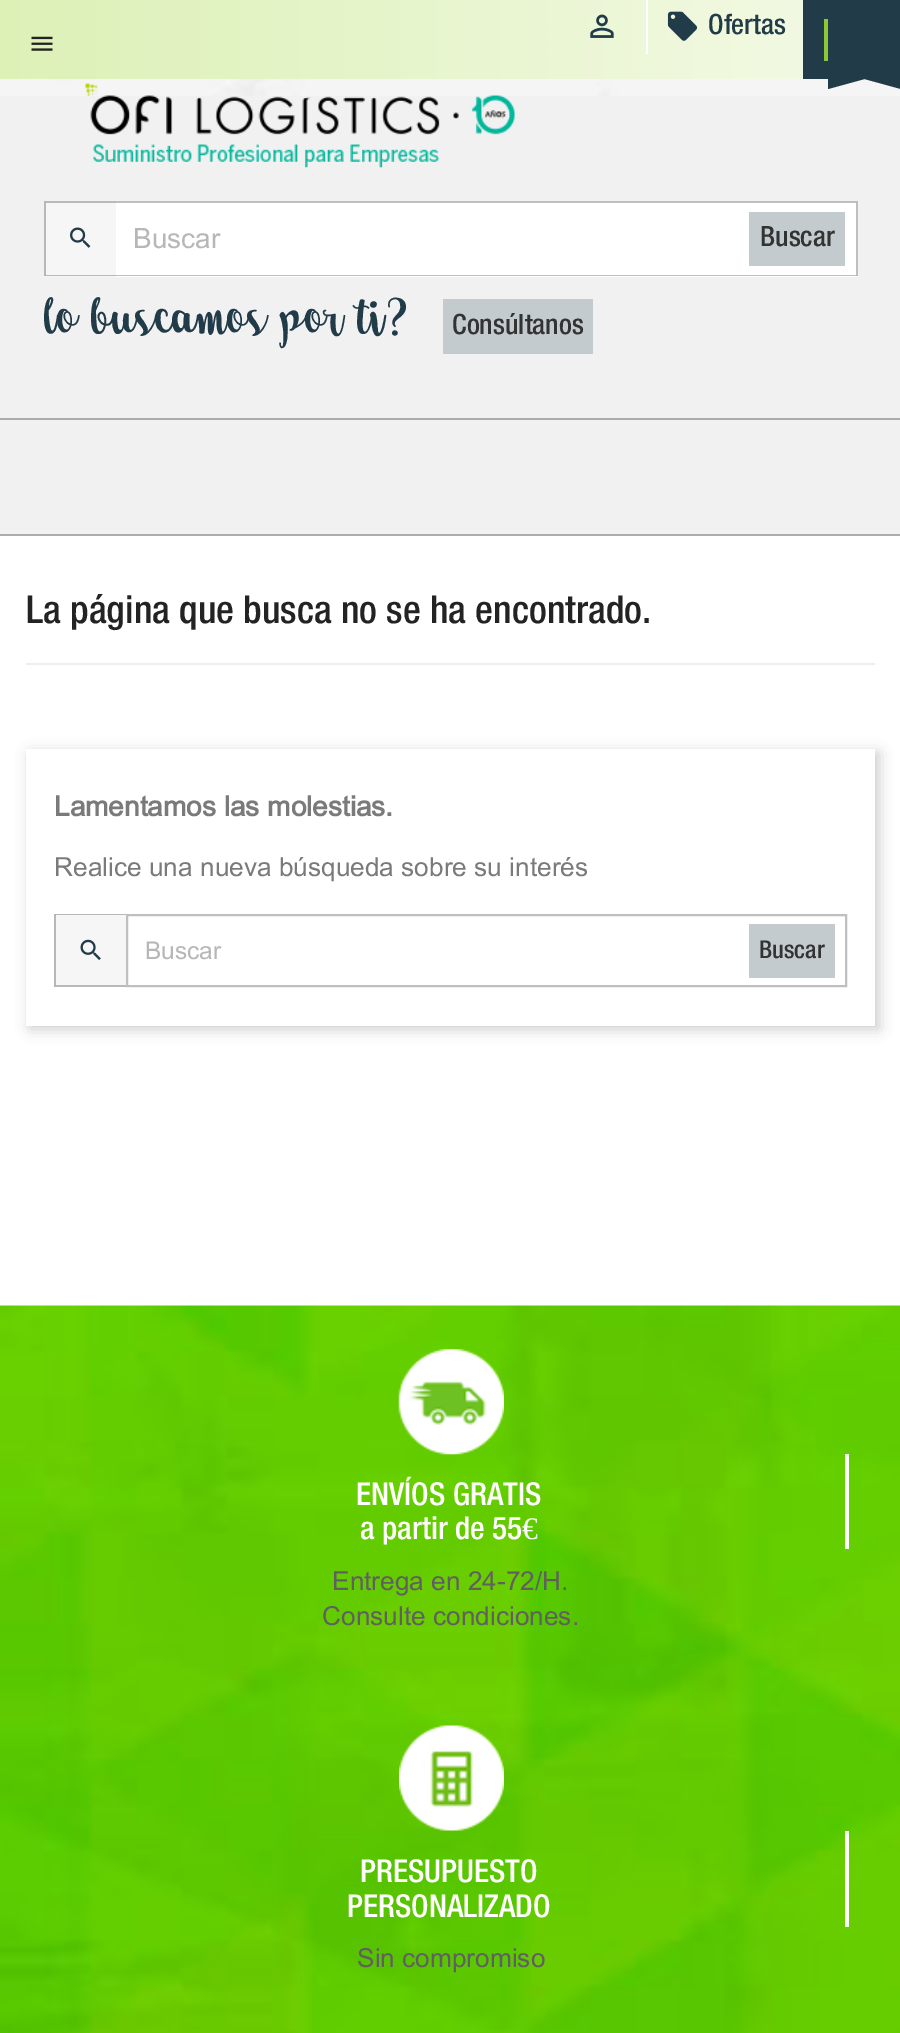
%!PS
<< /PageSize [900 2033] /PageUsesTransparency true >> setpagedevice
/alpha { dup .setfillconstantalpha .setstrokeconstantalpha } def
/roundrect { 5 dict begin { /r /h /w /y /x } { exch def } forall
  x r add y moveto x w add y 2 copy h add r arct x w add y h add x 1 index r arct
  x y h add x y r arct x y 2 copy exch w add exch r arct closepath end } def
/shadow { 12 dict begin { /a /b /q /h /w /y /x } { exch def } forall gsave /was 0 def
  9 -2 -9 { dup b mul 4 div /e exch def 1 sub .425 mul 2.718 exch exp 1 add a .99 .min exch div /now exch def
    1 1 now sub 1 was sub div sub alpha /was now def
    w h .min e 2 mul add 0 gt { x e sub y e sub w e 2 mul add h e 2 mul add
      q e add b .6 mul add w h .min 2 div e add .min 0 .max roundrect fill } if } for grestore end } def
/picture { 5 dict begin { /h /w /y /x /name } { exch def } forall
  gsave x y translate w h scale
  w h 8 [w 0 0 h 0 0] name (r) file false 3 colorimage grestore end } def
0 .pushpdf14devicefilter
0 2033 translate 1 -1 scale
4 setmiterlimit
1 setgray
0 0 900 2033 rectfill
(img1.rgb) 0 79 900 17 picture
gsave newpath 0 0 moveto 803 0 lineto 803 79 lineto 0 79 lineto closepath clip newpath
<< /ShadingType 2 /ColorSpace /DeviceRGB /Coords [0 39 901 39] /Extend [true true] /Function << /FunctionType 2 /Domain [0 1] /C0 [0.867 0.945 0.718] /C1 [0.957 0.98 0.906] /N 1 >> >> shfill grestore
646 0 2 54 rectfill
(img2.rgb) 590 14 24 24 picture
(img3.rgb) 667 11 30 30 picture
/HelveticaNeue-Medium [28 0 0 -28 0 0] selectfont
0.133 0.231 0.286 setrgbcolor
708 34 moveto (Ofertas) show
803 0 97 79 rectfill
0.553 0.788 0.204 setrgbcolor
824 19 4 42 rectfill
0.133 0.231 0.286 setrgbcolor
newpath 828 79 moveto 864.5 79 lineto 828 89 lineto closepath fill
newpath 864.5 79 moveto 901 79 lineto 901 89 lineto closepath fill
(img4.rgb) 31 36 22 15 picture
0.945 setgray
0 96 900 438 rectfill
(img5.rgb) 85 83 430 85 picture
0.965 setgray
44 201 72 76 rectfill
0.725 setgray
newpath 44 201 moveto 116 201 lineto 116 203 lineto 46 203 lineto closepath fill
newpath 116 276 moveto 44 276 lineto 46 275 lineto 116 275 lineto closepath fill
0.25 alpha
0 setgray
newpath 44 276 moveto 44 201 lineto 46 203 lineto 46 275 lineto closepath fill
1 alpha
(img6.rgb) 70 227 21 21 picture
1 setgray
116 201 742 76 rectfill
0.749 setgray
newpath 116 201 moveto 858 201 lineto 856 203 lineto 116 203 lineto closepath fill
0.25 alpha
0 setgray
newpath 858 201 moveto 858 276 lineto 856 275 lineto 856 203 lineto closepath fill
newpath 858 276 moveto 116 276 lineto 116 275 lineto 856 275 lineto closepath fill
/Arial-Regular [28 0 0 -28 0 0] selectfont
1 alpha
0.718 setgray
133 248 moveto (Buscar) show
0.769 0.796 0.812 setrgbcolor
749 212 96 54 rectfill
/HelveticaNeue-Medium [28 0 0 -28 0 0] selectfont
0.2 setgray
760 246 moveto (Buscar) show
/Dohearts-Regular [56 0 0 -56 0 0] selectfont
0.133 0.231 0.286 setrgbcolor
44 334 moveto (lo buscamos por ti?) show
0.769 0.796 0.812 setrgbcolor
443 299 150 55 rectfill
/HelveticaNeue-Medium [28 0 0 -28 0 0] selectfont
0.2 setgray
452 334 moveto (Consúltanos) show
0.675 setgray
0 418 900 2 rectfill
0 534 900 2 rectfill
0.933 setgray
26 663 849 2 rectfill
/HelveticaNeue-Medium [38.5 0 0 -38.5 0 0] selectfont
0.137 setgray
26 623 moveto (La página que busca no se ha encontrado.) show
0 setgray
30 753 849 276 0 7 0.2 shadow
1 setgray
26 749 849 277 rectfill
/Arial-Bold [28 0 0 -28 0 0] selectfont
0.478 setgray
54 816 moveto (Lamentamos las molestias.) show
/Arial-Regular [26.25 0 0 -26.25 0 0] selectfont
54 876 moveto (Realice una nueva búsqueda sobre su interés) show
0.965 setgray
54 914 72 73 rectfill
0.725 setgray
newpath 54 914 moveto 126 914 lineto 126 915 lineto 56 915 lineto closepath fill
newpath 126 987 moveto 54 987 lineto 56 985 lineto 126 985 lineto closepath fill
0.25 alpha
0 setgray
newpath 54 987 moveto 54 914 lineto 56 915 lineto 56 985 lineto closepath fill
1 alpha
(img7.rgb) 80 939 21 21 picture
0.749 setgray
2 setlinewidth
127 915 719 71 rectstroke
/Arial-Regular [24.5 0 0 -24.5 0 0] selectfont
0.718 setgray
145 959 moveto (Buscar) show
0.769 0.796 0.812 setrgbcolor
749 924 86 54 rectfill
/HelveticaNeue-Medium [24.5 0 0 -24.5 0 0] selectfont
0.2 setgray
759 958 moveto (Buscar) show
(img8.rgb) 0 1305 900 728 picture
(img9.rgb) 398 1349 106 106 picture
1 setgray
845 1454 4 95 rectfill
/HelveticaNeue-Medium [31.5 0 0 -31.5 0 0] selectfont
356 1505 moveto (ENVÍOS GRATIS) show
360 1539 moveto (a partir de 55) show
/LiberationSerif-Regular [31.5 0 0 -31.5 0 0] selectfont
522 1539 moveto (€) show
/Arial-Regular [26.25 0 0 -26.25 0 0] selectfont
0.376 setgray
332 1590 moveto (Entrega en 24-72/H.) show
322 1625 moveto (Consulte condiciones.) show
(img10.rgb) 399 1725 105 106 picture
1 setgray
845 1831 4 96 rectfill
/HelveticaNeue-Medium [31.5 0 0 -31.5 0 0] selectfont
360 1882 moveto (PRESUPUESTO) show
347 1917 moveto (PERSONALIZADO) show
/Arial-Regular [26.25 0 0 -26.25 0 0] selectfont
0.376 setgray
357 1967 moveto (Sin compromiso) show
.poppdf14devicefilter showpage
